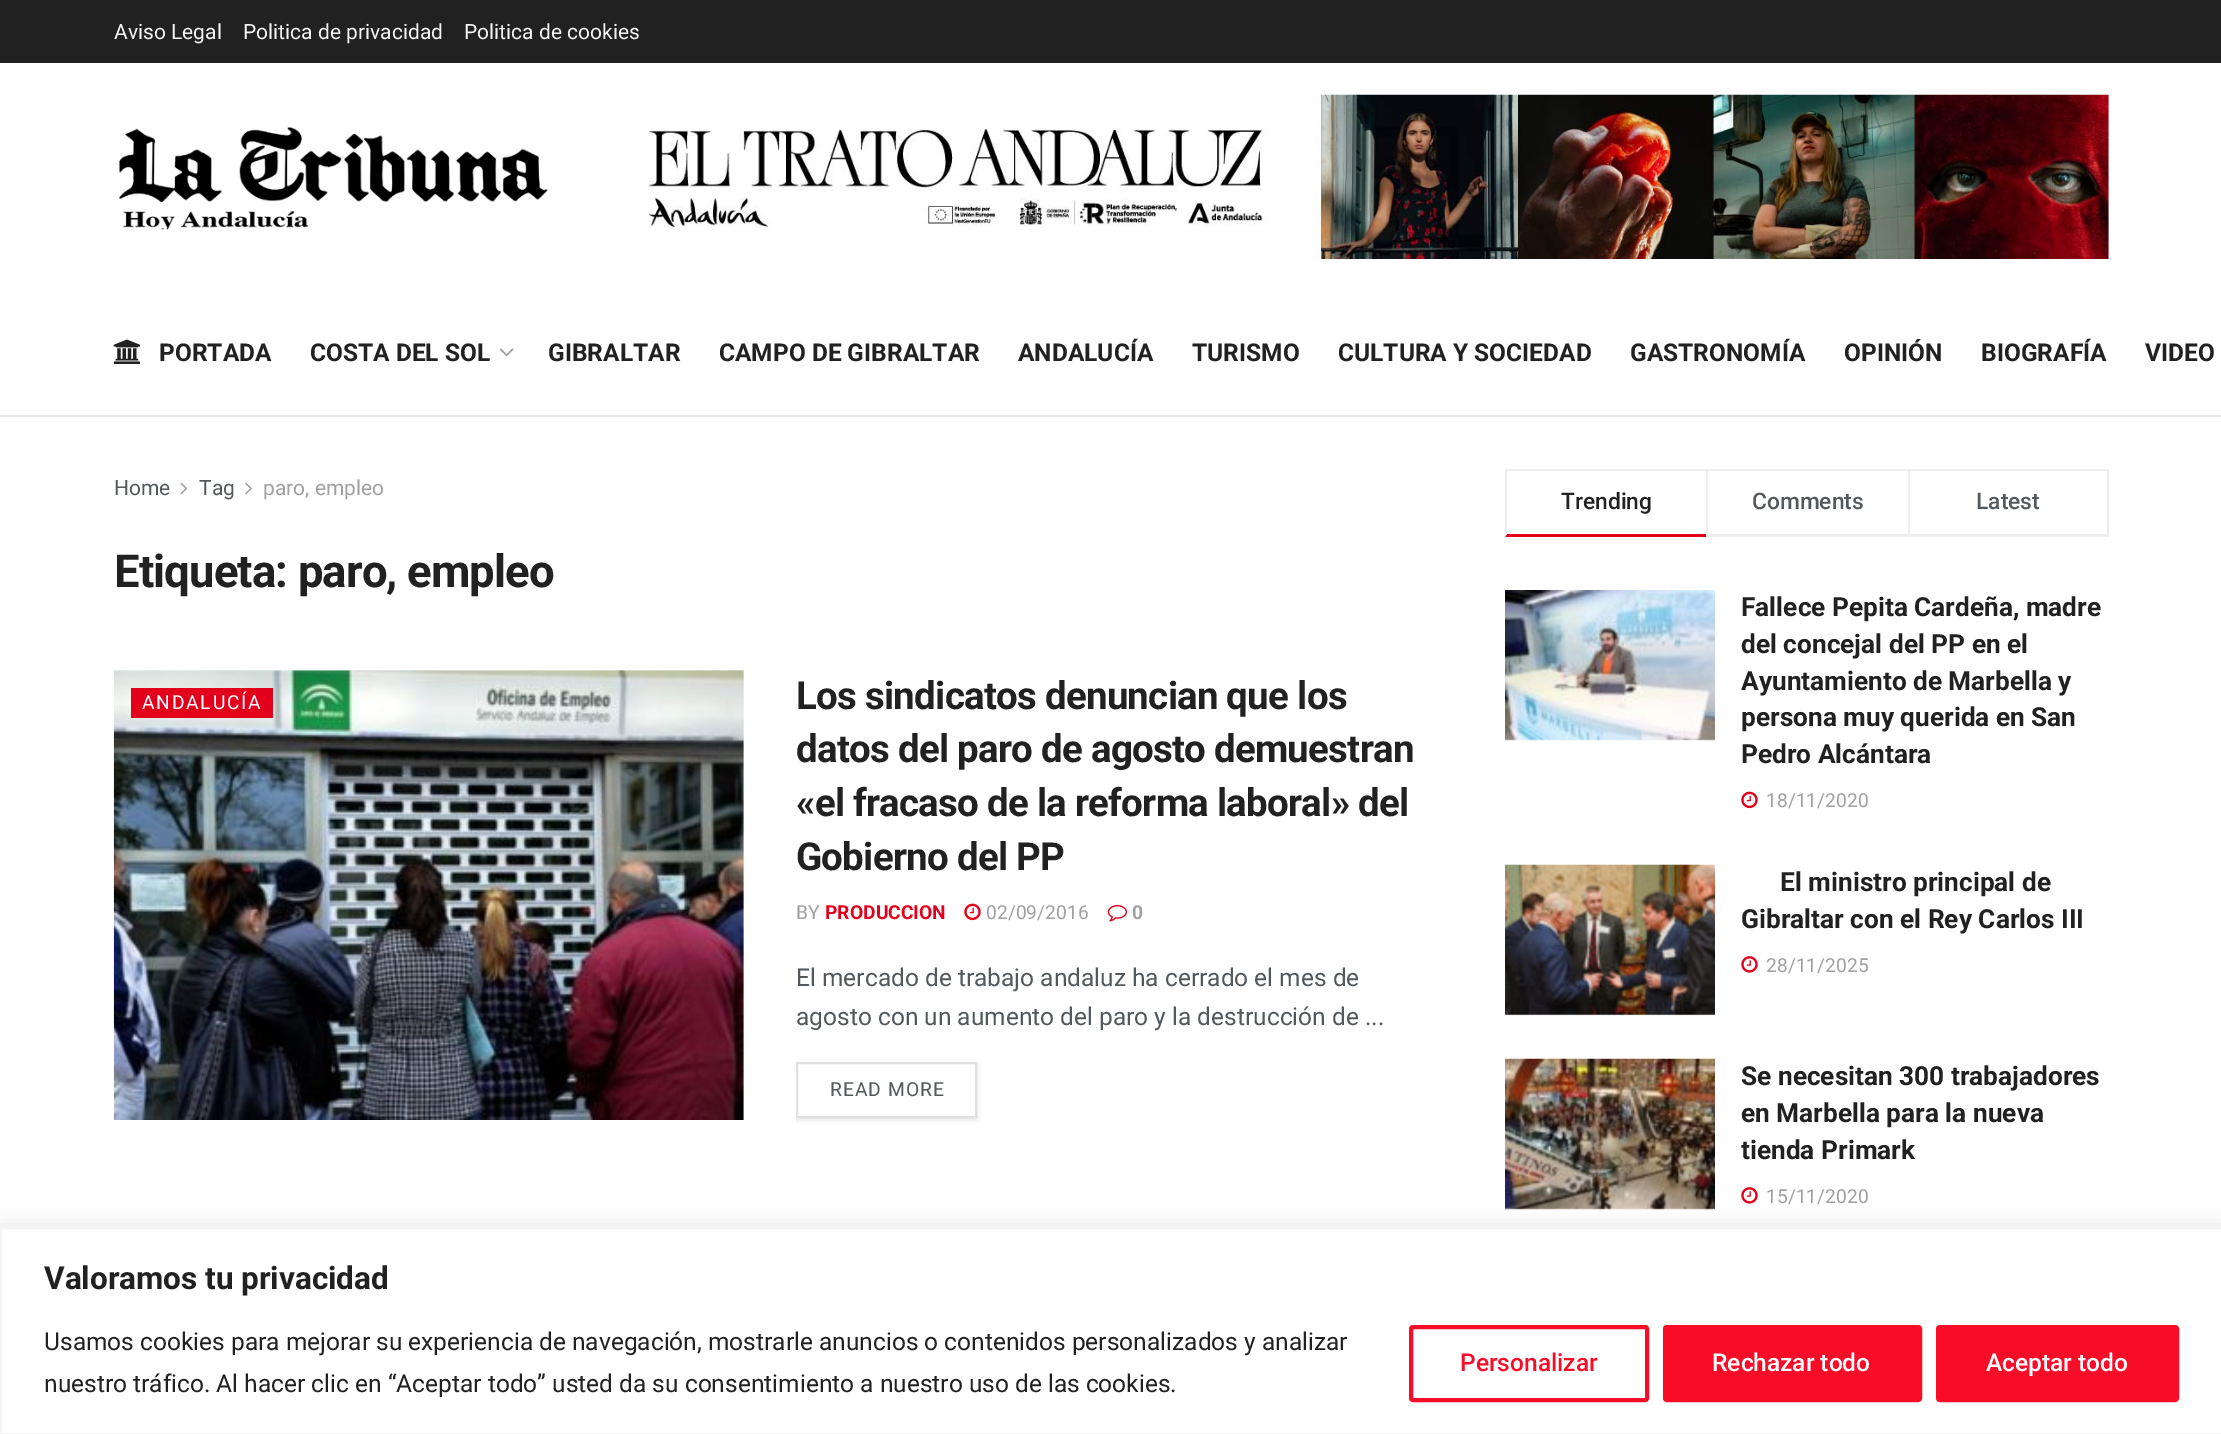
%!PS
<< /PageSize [2221 1434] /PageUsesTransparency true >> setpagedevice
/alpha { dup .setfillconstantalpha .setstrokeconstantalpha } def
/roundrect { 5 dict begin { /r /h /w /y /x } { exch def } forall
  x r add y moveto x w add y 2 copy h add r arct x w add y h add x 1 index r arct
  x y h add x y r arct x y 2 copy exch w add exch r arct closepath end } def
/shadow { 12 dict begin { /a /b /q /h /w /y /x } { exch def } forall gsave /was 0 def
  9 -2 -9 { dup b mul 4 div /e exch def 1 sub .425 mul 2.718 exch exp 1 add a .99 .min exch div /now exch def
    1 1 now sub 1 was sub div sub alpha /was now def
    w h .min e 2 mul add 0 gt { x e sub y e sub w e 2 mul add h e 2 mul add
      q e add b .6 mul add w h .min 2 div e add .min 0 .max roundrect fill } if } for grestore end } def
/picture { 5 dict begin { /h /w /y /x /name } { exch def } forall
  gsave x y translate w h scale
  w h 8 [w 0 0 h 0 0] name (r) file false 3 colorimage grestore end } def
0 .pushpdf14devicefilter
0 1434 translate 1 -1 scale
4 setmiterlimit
1 setgray
0 0 2221 1434 rectfill
0.129 setgray
0 0 2221 63 rectfill
/Roboto-Regular [21 0 0 -21 0 0] selectfont
0.961 setgray
114 39 moveto (Aviso Legal) show
243 39 moveto (Politica de privacidad) show
464 39 moveto (Politica de cookies) show
(img1.rgb) 119 126 429 104 picture
(img2.rgb) 648 94 1461 165 picture
0.91 setgray
0 415 2221 2 rectfill
(img3.rgb) 113 339 27 25 picture
/Roboto-Bold [24.5 0 0 -24.5 0 0] selectfont
0.129 setgray
159 361 moveto (PORTADA) show
310 361 moveto (COSTA DEL SOL) show
(img4.rgb) 499 348 15 9 picture
548 361 moveto (GIBRALTAR) show
719 361 moveto (CAMPO DE GIBRALTAR) show
1018 361 moveto (ANDALUCÍA) show
1192 361 moveto (TURISMO) show
1338 361 moveto (CULTURA Y SOCIEDAD) show
1630 361 moveto (GASTRONOMÍA) show
1844 361 moveto (OPINIÓN) show
1981 361 moveto (BIOGRAFÍA) show
2145 361 moveto (VIDEO) show
/Roboto-Regular [21 0 0 -21 0 0] selectfont
0.325 0.345 0.361 setrgbcolor
114 495 moveto (Home) show
(img5.rgb) 180 482 8 13 picture
199 495 moveto (Tag) show
(img6.rgb) 245 482 7 13 picture
0.627 setgray
263 495 moveto (paro, empleo) show
/Roboto-Bold [45.5 0 0 -45.5 0 0] selectfont
0.129 setgray
114 587 moveto -0.9 0 (Etiqueta: paro, empleo) ashow
0.969 setgray
114 670 630 450 rectfill
(img7.rgb) 113 670 631 450 picture
0.89 0 0.106 setrgbcolor
131 688 142 30 rectfill
/Roboto-Regular [19.25 0 0 -19.25 0 0] selectfont
1 setgray
142 709 moveto 1.75 0 (ANDALUCÍA) ashow
/Roboto-Bold [38.5 0 0 -38.5 0 0] selectfont
0.129 setgray
796 709 moveto -0.75 0 (Los sindicatos denuncian que los) ashow
796 762 moveto -0.75 0 (datos del paro de agosto demuestran) ashow
796 816 moveto -0.75 0 («el fracaso de la reforma laboral» del) ashow
796 870 moveto -0.75 0 (Gobierno del PP) ashow
/Roboto-Regular [19.25 0 0 -19.25 0 0] selectfont
0.627 setgray
796 919 moveto (BY) show
/Roboto-Bold [19.25 0 0 -19.25 0 0] selectfont
0.89 0 0.106 setrgbcolor
825 919 moveto (PRODUCCION) show
(img8.rgb) 964 903 17 18 picture
/Roboto-Regular [19.25 0 0 -19.25 0 0] selectfont
0.627 setgray
986 919 moveto (02/09/2016) show
(img9.rgb) 1107 905 20 17 picture
/Roboto-Bold [19.25 0 0 -19.25 0 0] selectfont
1132 919 moveto (0) show
/Roboto-Regular [24.5 0 0 -24.5 0 0] selectfont
0.325 0.345 0.361 setrgbcolor
796 986 moveto (El mercado de trabajo andaluz ha cerrado el mes de) show
796 1025 moveto (agosto con un aumento del paro y la destrucción de ...) show
gsave
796 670 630 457 rectclip
newpath 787 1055 moveto 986 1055 lineto 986 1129 lineto 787 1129 lineto closepath 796 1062 moveto 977 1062 lineto 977 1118 lineto 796 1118 lineto closepath eoclip newpath
0 setgray
796 1064 181 56 0 2.5 0.1 shadow
grestore
0.878 setgray
2 setlinewidth
797 1063 179 54 rectstroke
/Roboto-Regular [19.25 0 0 -19.25 0 0] selectfont
0.325 0.345 0.361 setrgbcolor
830 1096 moveto 1 0 (READ MORE) ashow
0.933 setgray
1505 469 604 2 rectfill
0.89 0 0.106 setrgbcolor
newpath 1706 537 moveto 1505 537 lineto 1507 534 lineto 1706 534 lineto closepath fill
0.933 setgray
newpath 1505 537 moveto 1505 469 lineto 1507 471 lineto 1507 534 lineto closepath fill
/Roboto-Medium [22.75 0 0 -22.75 0 0] selectfont
0.129 setgray
1561 509 moveto (Trending) show
0.933 setgray
1706 534 202 3 rectfill
1706 469 2 68 rectfill
0.325 0.345 0.361 setrgbcolor
1752 509 moveto (Comments) show
0.933 setgray
2107 469 2 68 rectfill
1908 534 201 3 rectfill
1908 469 2 68 rectfill
0.325 0.345 0.361 setrgbcolor
1976 509 moveto (Latest) show
(img10.rgb) 1505 590 210 151 picture
/Roboto-Bold [26.25 0 0 -26.25 0 0] selectfont
0.129 setgray
1741 616 moveto (Fallece Pepita Cardeña, madre) show
1741 653 moveto (del concejal del PP en el) show
1741 690 moveto (Ayuntamiento de Marbella y) show
1741 726 moveto (persona muy querida en San) show
1741 763 moveto (Pedro Alcántara) show
(img8.rgb) 1741 791 17 18 picture
/Roboto-Regular [19.25 0 0 -19.25 0 0] selectfont
0.627 setgray
1766 807 moveto (18/11/2020) show
(img11.rgb) 1505 864 210 152 picture
/Roboto-Bold [26.25 0 0 -26.25 0 0] selectfont
0.129 setgray
1780 891 moveto (El ministro principal de) show
1741 928 moveto (Gibraltar con el Rey Carlos III) show
(img12.rgb) 1741 956 17 17 picture
/Roboto-Regular [19.25 0 0 -19.25 0 0] selectfont
0.627 setgray
1766 972 moveto (28/11/2025) show
(img13.rgb) 1505 1058 210 152 picture
/Roboto-Bold [26.25 0 0 -26.25 0 0] selectfont
0.129 setgray
1741 1085 moveto (Se necesitan 300 trabajadores) show
1741 1122 moveto (en Marbella para la nueva) show
1741 1159 moveto (tienda Primark) show
(img12.rgb) 1741 1187 17 17 picture
/Roboto-Regular [19.25 0 0 -19.25 0 0] selectfont
0.627 setgray
1766 1203 moveto (15/11/2020) show
0.675 0.671 0.671 setrgbcolor
0 1225 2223 208 0 9 0.3 shadow
1 setgray
newpath 1 1228 moveto 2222 1228 lineto 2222 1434 lineto 1 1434 lineto closepath gsave fill grestore
0.957 setgray
stroke
/Roboto-Bold [31.5 0 0 -31.5 0 0] selectfont
0.129 setgray
44 1289 moveto (Valoramos tu privacidad) show
/Roboto-Regular [24.5 0 0 -24.5 0 0] selectfont
44 1350 moveto (Usamos cookies para mejorar su experiencia de navegación, mostrarle anuncios o contenidos personalizados y analizar) show
44 1392 moveto (nuestro tráfico. Al hacer clic en “Aceptar todo” usted da su consentimiento a nuestro uso de las cookies.) show
0.969 0.051 0.157 setrgbcolor
4 setlinewidth
1411 1327 236 73 2 roundrect stroke
/Roboto-Medium [24.5 0 0 -24.5 0 0] selectfont
1460 1371 moveto (Personalizar) show
1665 1327 255 73 2 roundrect gsave fill grestore
stroke
1 setgray
1712 1371 moveto (Rechazar todo) show
0.969 0.051 0.157 setrgbcolor
1938 1327 239 73 2 roundrect gsave fill grestore
stroke
1 setgray
1986 1371 moveto (Aceptar todo) show
.poppdf14devicefilter showpage
